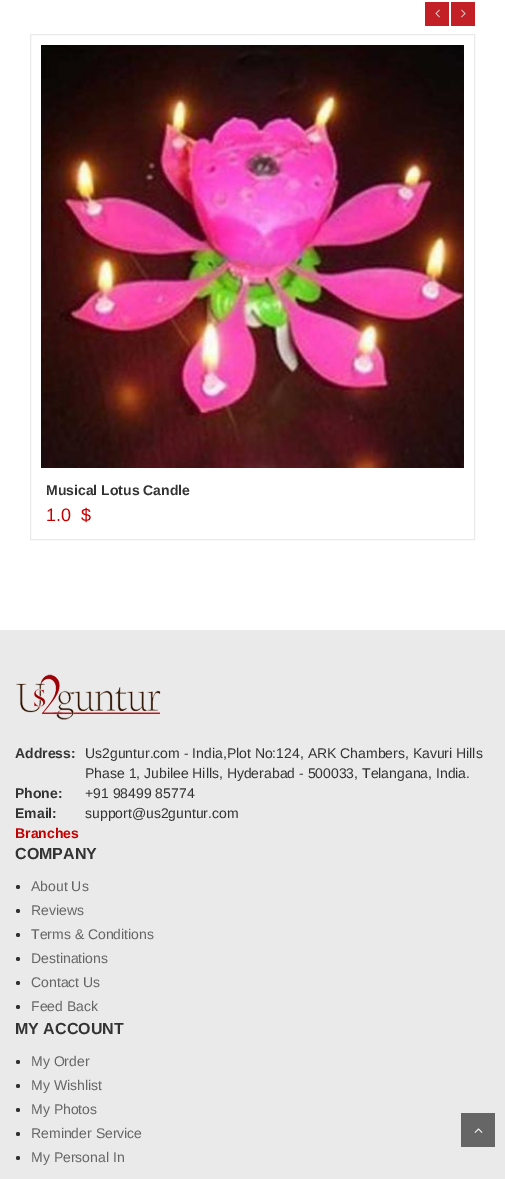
%!PS
<< /PageSize [505 1179] >> setpagedevice
/picture { 5 dict begin { /h /w /y /x /name } { exch def } forall
  gsave x y translate w h scale
  w h 8 [w 0 0 h 0 0] name (r) file false 3 colorimage grestore end } def
0 1179 translate 1 -1 scale
4 setmiterlimit
1 setgray
0 0 505 1179 rectfill
0.761 0.125 0.149 setrgbcolor
425 2 24 24 rectfill
(img1.rgb) 435 9 5 9 picture
451 2 24 24 rectfill
(img2.rgb) 461 9 5 9 picture
0.918 setgray
30.5 34.5 444 505 rectstroke
(img3.rgb) 41 45 423 423 picture
/LiberationSans-Bold [14 0 0 -14 0 0] selectfont
0.2 setgray
46 495 moveto (Musical Lotus Candle) show
/LiberationSans-Regular [18 0 0 -18 0 0] selectfont
0.769 0 0 setrgbcolor
46 521 moveto (1.0  $) show
0.918 setgray
0 630 505 549 rectfill
(img4.rgb) 16 674 145 46 picture
/LiberationSans-Bold [14 0 0 -14 0 0] selectfont
0.2 setgray
15 758 moveto (Address:) show
/LiberationSans-Regular [14 0 0 -14 0 0] selectfont
85 758 moveto (Us2guntur.com - India,Plot No:124, ARK Chambers, Kavuri Hills) show
85 778 moveto (Phase 1, Jubilee Hills, Hyderabad - 500033, Telangana, India.) show
/LiberationSans-Bold [14 0 0 -14 0 0] selectfont
15 798 moveto (Phone:) show
/LiberationSans-Regular [14 0 0 -14 0 0] selectfont
85 798 moveto (+91 98499 85774) show
/LiberationSans-Bold [14 0 0 -14 0 0] selectfont
15 818 moveto (Email:) show
/LiberationSans-Regular [14 0 0 -14 0 0] selectfont
85 818 moveto (support@us2guntur.com) show
/LiberationSans-Bold [14 0 0 -14 0 0] selectfont
0.769 0 0 setrgbcolor
15 838 moveto (Branches) show
/LiberationSans-Bold [16 0 0 -16 0 0] selectfont
0.2 setgray
15 859 moveto (COMPANY) show
newpath 18 887 2 0 360 arc closepath fill
/LiberationSans-Regular [14 0 0 -14 0 0] selectfont
0.4 setgray
31 891 moveto (About Us) show
0.2 setgray
newpath 18 911 2 0 360 arc closepath fill
0.4 setgray
31 915 moveto (Reviews) show
0.2 setgray
newpath 18 935 2 0 360 arc closepath fill
0.4 setgray
31 939 moveto (Terms & Conditions) show
0.2 setgray
newpath 18 959 2 0 360 arc closepath fill
0.4 setgray
31 963 moveto (Destinations) show
0.2 setgray
newpath 18 983 2 0 360 arc closepath fill
0.4 setgray
31 987 moveto (Contact Us) show
0.2 setgray
newpath 18 1007 2 0 360 arc closepath fill
0.4 setgray
31 1011 moveto (Feed Back) show
/LiberationSans-Bold [16 0 0 -16 0 0] selectfont
0.2 setgray
15 1034 moveto (MY ACCOUNT) show
newpath 18 1062 2 0 360 arc closepath fill
/LiberationSans-Regular [14 0 0 -14 0 0] selectfont
0.4 setgray
31 1066 moveto (My Order) show
0.2 setgray
newpath 18 1086 2 0 360 arc closepath fill
0.4 setgray
31 1090 moveto (My Wishlist) show
0.2 setgray
newpath 18 1110 2 0 360 arc closepath fill
0.4 setgray
31 1114 moveto (My Photos) show
0.2 setgray
newpath 18 1134 2 0 360 arc closepath fill
0.4 setgray
31 1138 moveto (Reminder Service) show
0.2 setgray
newpath 18 1158 2 0 360 arc closepath fill
0.4 setgray
31 1162 moveto (My Personal In) show
461 1113 34 34 rectfill
(img5.rgb) 474 1128 9 5 picture
showpage
